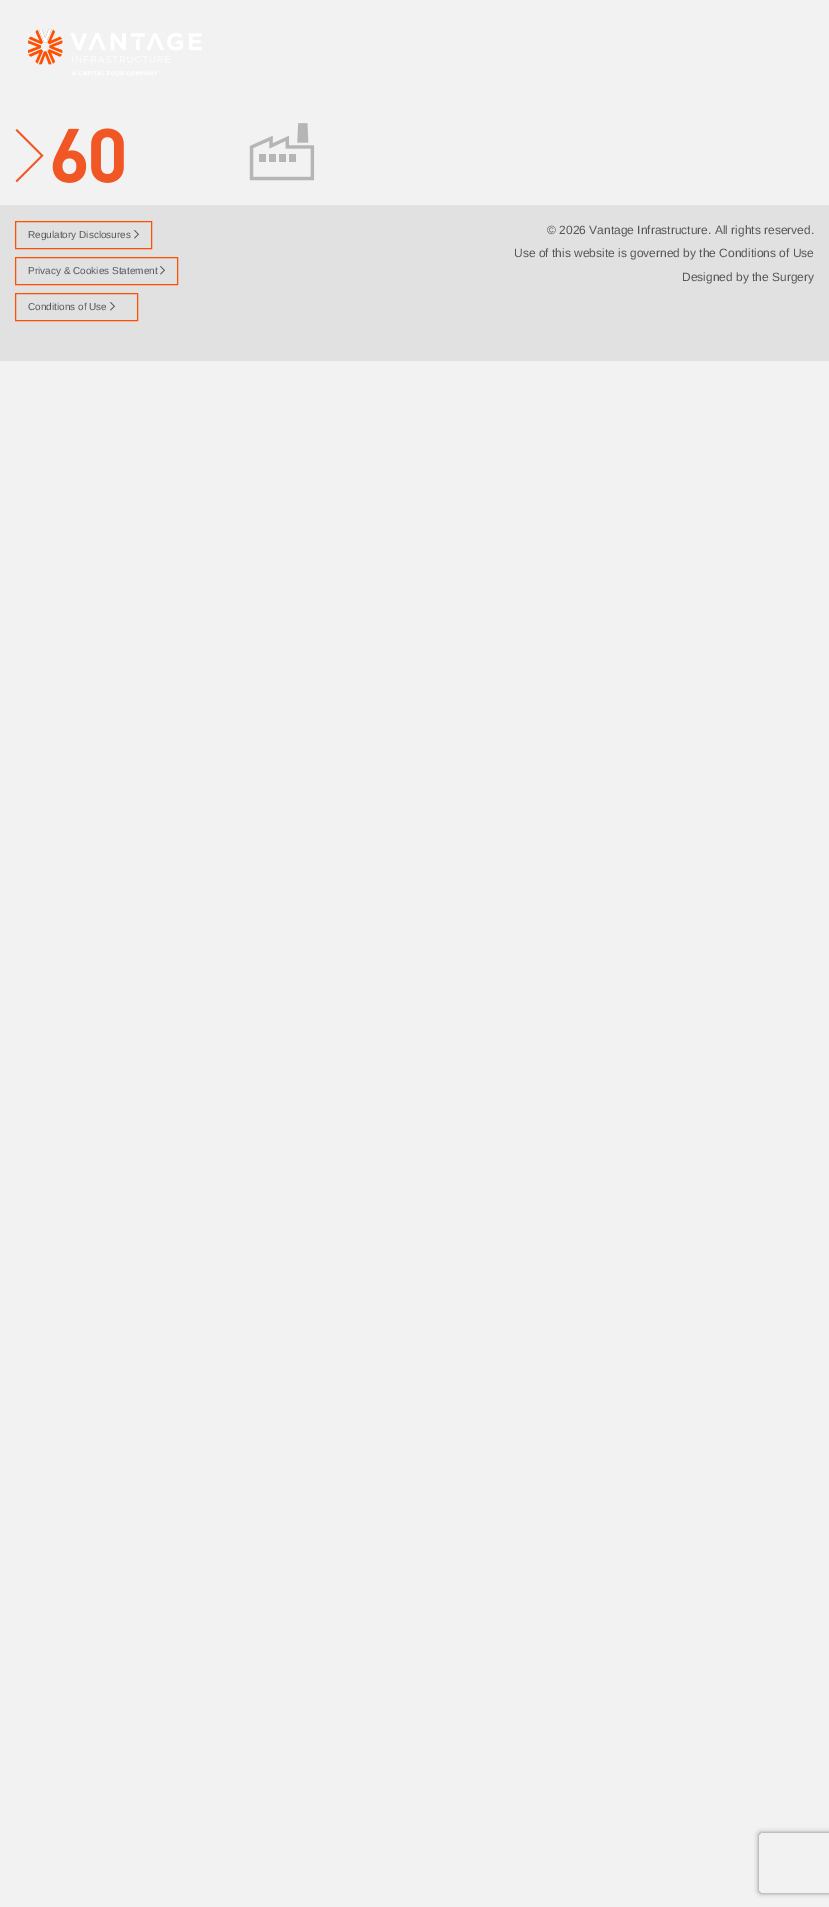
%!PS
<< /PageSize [829 1907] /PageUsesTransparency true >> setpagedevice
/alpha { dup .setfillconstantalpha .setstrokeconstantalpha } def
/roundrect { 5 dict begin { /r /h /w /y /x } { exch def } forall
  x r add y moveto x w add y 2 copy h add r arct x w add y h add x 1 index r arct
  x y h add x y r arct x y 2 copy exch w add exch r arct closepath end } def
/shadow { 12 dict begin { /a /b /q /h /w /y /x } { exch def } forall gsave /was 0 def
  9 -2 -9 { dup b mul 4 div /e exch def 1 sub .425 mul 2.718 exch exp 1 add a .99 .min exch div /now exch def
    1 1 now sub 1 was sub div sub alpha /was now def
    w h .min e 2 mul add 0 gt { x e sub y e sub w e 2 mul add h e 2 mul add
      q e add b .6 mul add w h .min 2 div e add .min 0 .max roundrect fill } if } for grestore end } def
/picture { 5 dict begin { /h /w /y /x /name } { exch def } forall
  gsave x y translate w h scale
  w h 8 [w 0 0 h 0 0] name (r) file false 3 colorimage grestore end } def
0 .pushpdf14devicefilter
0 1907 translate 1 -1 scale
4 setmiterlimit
0.949 setgray
0 0 829 1907 rectfill
(img1.rgb) 28 29 174 47 picture
(img2.rgb) 15 123 300 60 picture
0.882 setgray
0 205 829 156 rectfill
0.996 0.314 0 setrgbcolor
15.5 221.5 136 27 rectstroke
/LiberationSans-Regular [10 0 0 -10 0 0] selectfont
0.325 0.337 0.353 setrgbcolor
28 238 moveto (Regulatory Disclosures) show
(img3.rgb) 134 230 5 9 picture
0.996 0.314 0 setrgbcolor
15.5 257.5 162 27 rectstroke
0.325 0.337 0.353 setrgbcolor
28 274 moveto (Privacy & Cookies Statement) show
(img3.rgb) 160 266 5 9 picture
0.996 0.314 0 setrgbcolor
15.5 293.5 122 27 rectstroke
0.325 0.337 0.353 setrgbcolor
28 310 moveto (Conditions of Use) show
(img3.rgb) 110 302 5 9 picture
/LiberationSans-Regular [12 0 0 -12 0 0] selectfont
547 234 moveto (© 2026 Vantage Infrastructure. All rights reserved.) show
514 257 moveto (Use of this website is governed by the Conditions of Use) show
682 281 moveto (Designed by the Surgery) show
gsave
newpath 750 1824 moveto 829 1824 lineto 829 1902 lineto 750 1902 lineto closepath 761 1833 moveto 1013 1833 lineto 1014 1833 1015 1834 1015 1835 curveto 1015 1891 lineto 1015 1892 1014 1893 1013 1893 curveto 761 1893 lineto 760 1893 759 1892 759 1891 curveto 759 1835 lineto 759 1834 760 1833 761 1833 curveto closepath eoclip newpath
0.502 setgray
759 1833 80 60 2 2.5 1 shadow
grestore
.poppdf14devicefilter showpage
